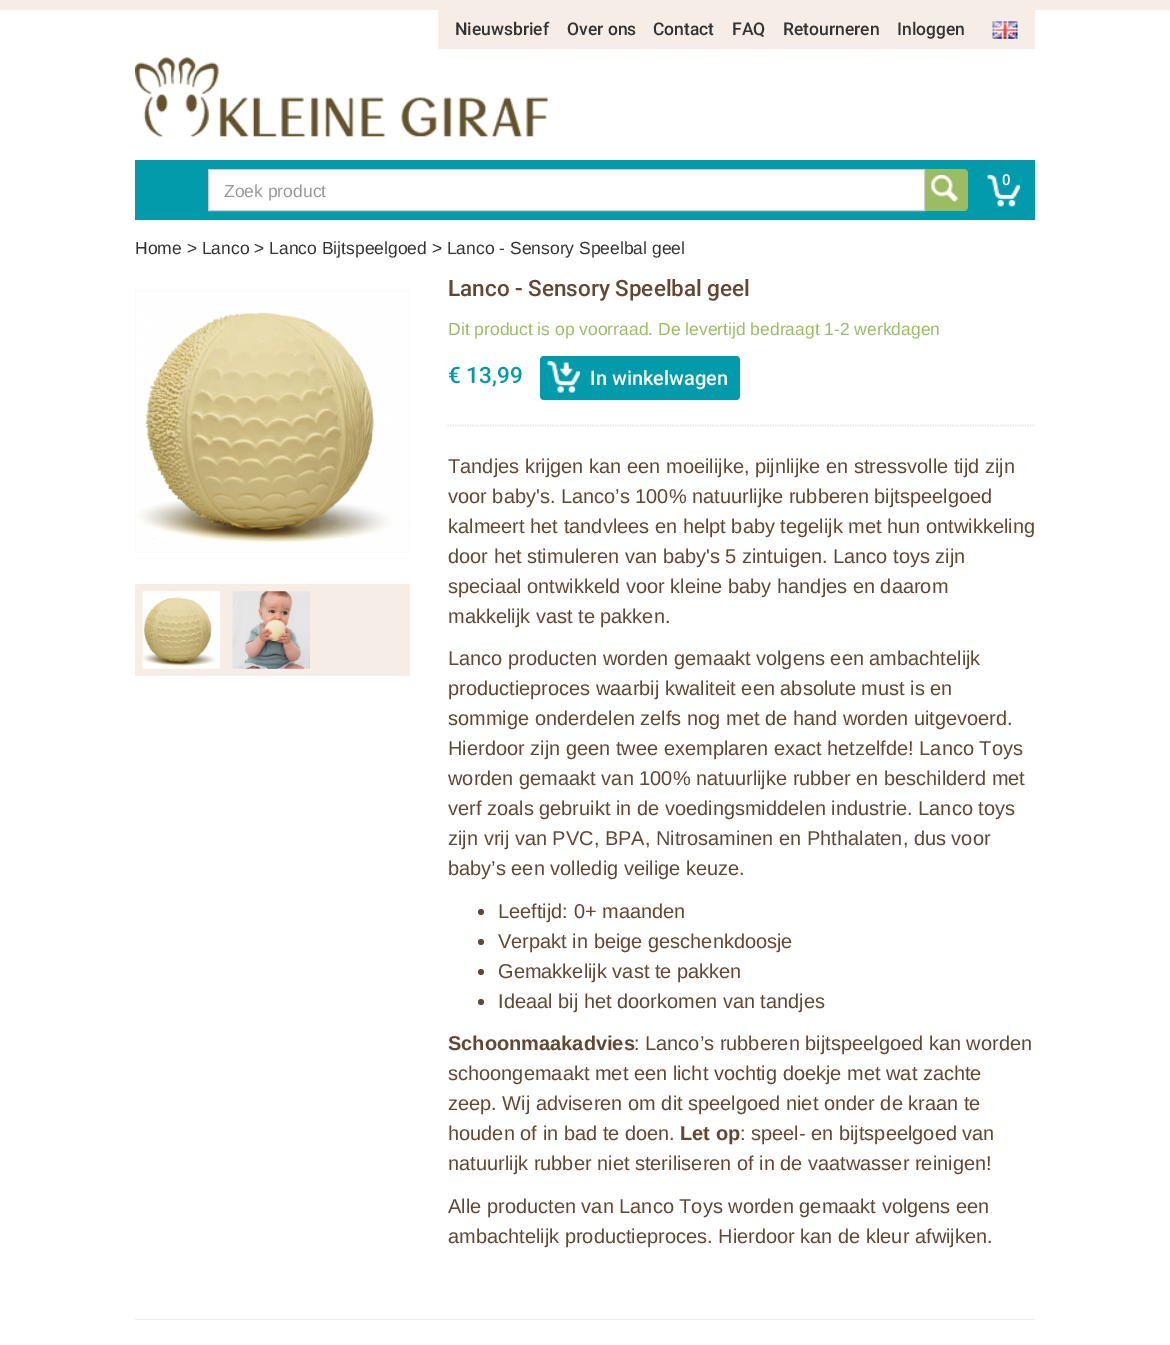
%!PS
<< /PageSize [1170 1345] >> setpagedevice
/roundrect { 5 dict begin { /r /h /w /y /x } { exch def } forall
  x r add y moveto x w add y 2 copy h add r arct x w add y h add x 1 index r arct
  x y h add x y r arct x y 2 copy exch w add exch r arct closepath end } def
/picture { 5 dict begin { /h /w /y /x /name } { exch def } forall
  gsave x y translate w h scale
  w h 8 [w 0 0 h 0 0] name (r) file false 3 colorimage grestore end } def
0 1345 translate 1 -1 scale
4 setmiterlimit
1 setgray
0 0 1170 1345 rectfill
0.965 0.929 0.902 setrgbcolor
0 0 1170 10 rectfill
438 10 597 39 rectfill
/Roboto-Medium [17.5 0 0 -17.5 0 0] selectfont
0.2 setgray
455 35 moveto (Nieuwsbrief) show
567 35 moveto (Over ons) show
653 35 moveto (Contact) show
732 35 moveto (FAQ) show
783 35 moveto (Retourneren) show
897 35 moveto (Inloggen) show
(img1.rgb) 992 21 26 18 picture
(img2.rgb) 135 57 413 80 picture
0.008 0.608 0.671 setrgbcolor
135 160 900 60 rectfill
(img3.rgb) 987 174 33 33 picture
/Roboto-Medium [15 0 0 -15 0 0] selectfont
1 setgray
1002 185 moveto (0) show
0.608 0.737 0.384 setrgbcolor
newpath 924 169 moveto 964 169 lineto 966 169 968 171 968 173 curveto 968 207 lineto 968 209 966 211 964 211 curveto 924 211 lineto closepath fill
1 setgray
newpath 208.5 169.5 moveto 924.5 169.5 lineto 924.5 210.5 lineto 208.5 210.5 lineto closepath gsave fill grestore
0.8 setgray
stroke
/LiberationSans-Regular [17.5 0 0 -17.5 0 0] selectfont
0.6 setgray
224 197 moveto (Zoek product) show
(img4.rgb) 931 175 27 27 picture
0.2 setgray
135 254 moveto (Home > Lanco > Lanco Bijtspeelgoed > Lanco - Sensory Speelbal geel) show
0.949 setgray
135 290 275 269 rectfill
(img5.rgb) 135 284 275 275 picture
0.965 0.929 0.902 setrgbcolor
135 584 275 92 rectfill
(img6.rgb) 142 591 78 78 picture
(img7.rgb) 232 591 78 78 picture
/Roboto-Medium [22.5 0 0 -22.5 0 0] selectfont
0.384 0.282 0.196 setrgbcolor
448 296 moveto (Lanco - Sensory Speelbal geel) show
/LiberationSans-Regular [17.5 0 0 -17.5 0 0] selectfont
0.608 0.737 0.384 setrgbcolor
448 335 moveto (Dit product is op voorraad. De levertijd bedraagt 1-2 werkdagen) show
/Roboto-Medium [22.5 0 0 -22.5 0 0] selectfont
0.004 0.608 0.671 setrgbcolor
448 383 moveto (€ 13,99) show
540 356 200 44 4 roundrect fill
(img8.rgb) 547 361 33 32 picture
/Roboto-Medium [20 0 0 -20 0 0] selectfont
1 setgray
590 385 moveto (In winkelwagen) show
0.898 0.878 0.878 setrgbcolor
1.2 setlinewidth
[1.25 1.25] 0 setdash
newpath 447.5 425.5 moveto 1035 425.5 lineto stroke
/LiberationSans-Regular [20 0 0 -20 0 0] selectfont
0.384 0.282 0.196 setrgbcolor
448 473 moveto (Tandjes krijgen kan een moeilijke, pijnlijke en stressvolle tijd zijn) show
448 503 moveto (voor baby's. Lanco’s 100% natuurlijke rubberen bijtspeelgoed) show
448 533 moveto (kalmeert het tandvlees en helpt baby tegelijk met hun ontwikkeling) show
448 563 moveto (door het stimuleren van baby's 5 zintuigen. Lanco toys zijn) show
448 593 moveto (speciaal ontwikkeld voor kleine baby handjes en daarom) show
448 623 moveto (makkelijk vast te pakken.) show
448 665 moveto (Lanco producten worden gemaakt volgens een ambachtelijk) show
448 695 moveto (productieproces waarbij kwaliteit een absolute must is en) show
448 725 moveto (sommige onderdelen zelfs nog met de hand worden uitgevoerd.) show
448 755 moveto (Hierdoor zijn geen twee exemplaren exact hetzelfde! Lanco Toys) show
448 785 moveto (worden gemaakt van 100% natuurlijke rubber en beschilderd met) show
448 815 moveto (verf zoals gebruikt in de voedingsmiddelen industrie. Lanco toys) show
448 845 moveto (zijn vrij van PVC, BPA, Nitrosaminen en Phthalaten, dus voor) show
448 875 moveto (baby’s een volledig veilige keuze.) show
newpath 481 912 3 0 360 arc closepath fill
498 918 moveto (Leeftijd: 0+ maanden) show
newpath 481 942 3 0 360 arc closepath fill
498 948 moveto (Verpakt in beige geschenkdoosje) show
newpath 481 972 3 0 360 arc closepath fill
498 978 moveto (Gemakkelijk vast te pakken) show
newpath 481 1002 3 0 360 arc closepath fill
498 1008 moveto (Ideaal bij het doorkomen van tandjes) show
/LiberationSans-Bold [20 0 0 -20 0 0] selectfont
448 1050 moveto (Schoonmaakadvies) show
/LiberationSans-Regular [20 0 0 -20 0 0] selectfont
634 1050 moveto (: Lanco’s rubberen bijtspeelgoed kan worden) show
448 1080 moveto (schoongemaakt met een licht vochtig doekje met wat zachte) show
448 1110 moveto (zeep. Wij adviseren om dit speelgoed niet onder de kraan te) show
448 1140 moveto (houden of in bad te doen.) show
/LiberationSans-Bold [20 0 0 -20 0 0] selectfont
680 1140 moveto (Let op) show
/LiberationSans-Regular [20 0 0 -20 0 0] selectfont
740 1140 moveto (: speel- en bijtspeelgoed van) show
448 1170 moveto (natuurlijk rubber niet steriliseren of in de vaatwasser reinigen!) show
448 1213 moveto (Alle producten van Lanco Toys worden gemaakt volgens een) show
448 1243 moveto (ambachtelijk productieproces. Hierdoor kan de kleur afwijken.) show
0.933 setgray
135 1319 900 1 rectfill
showpage
